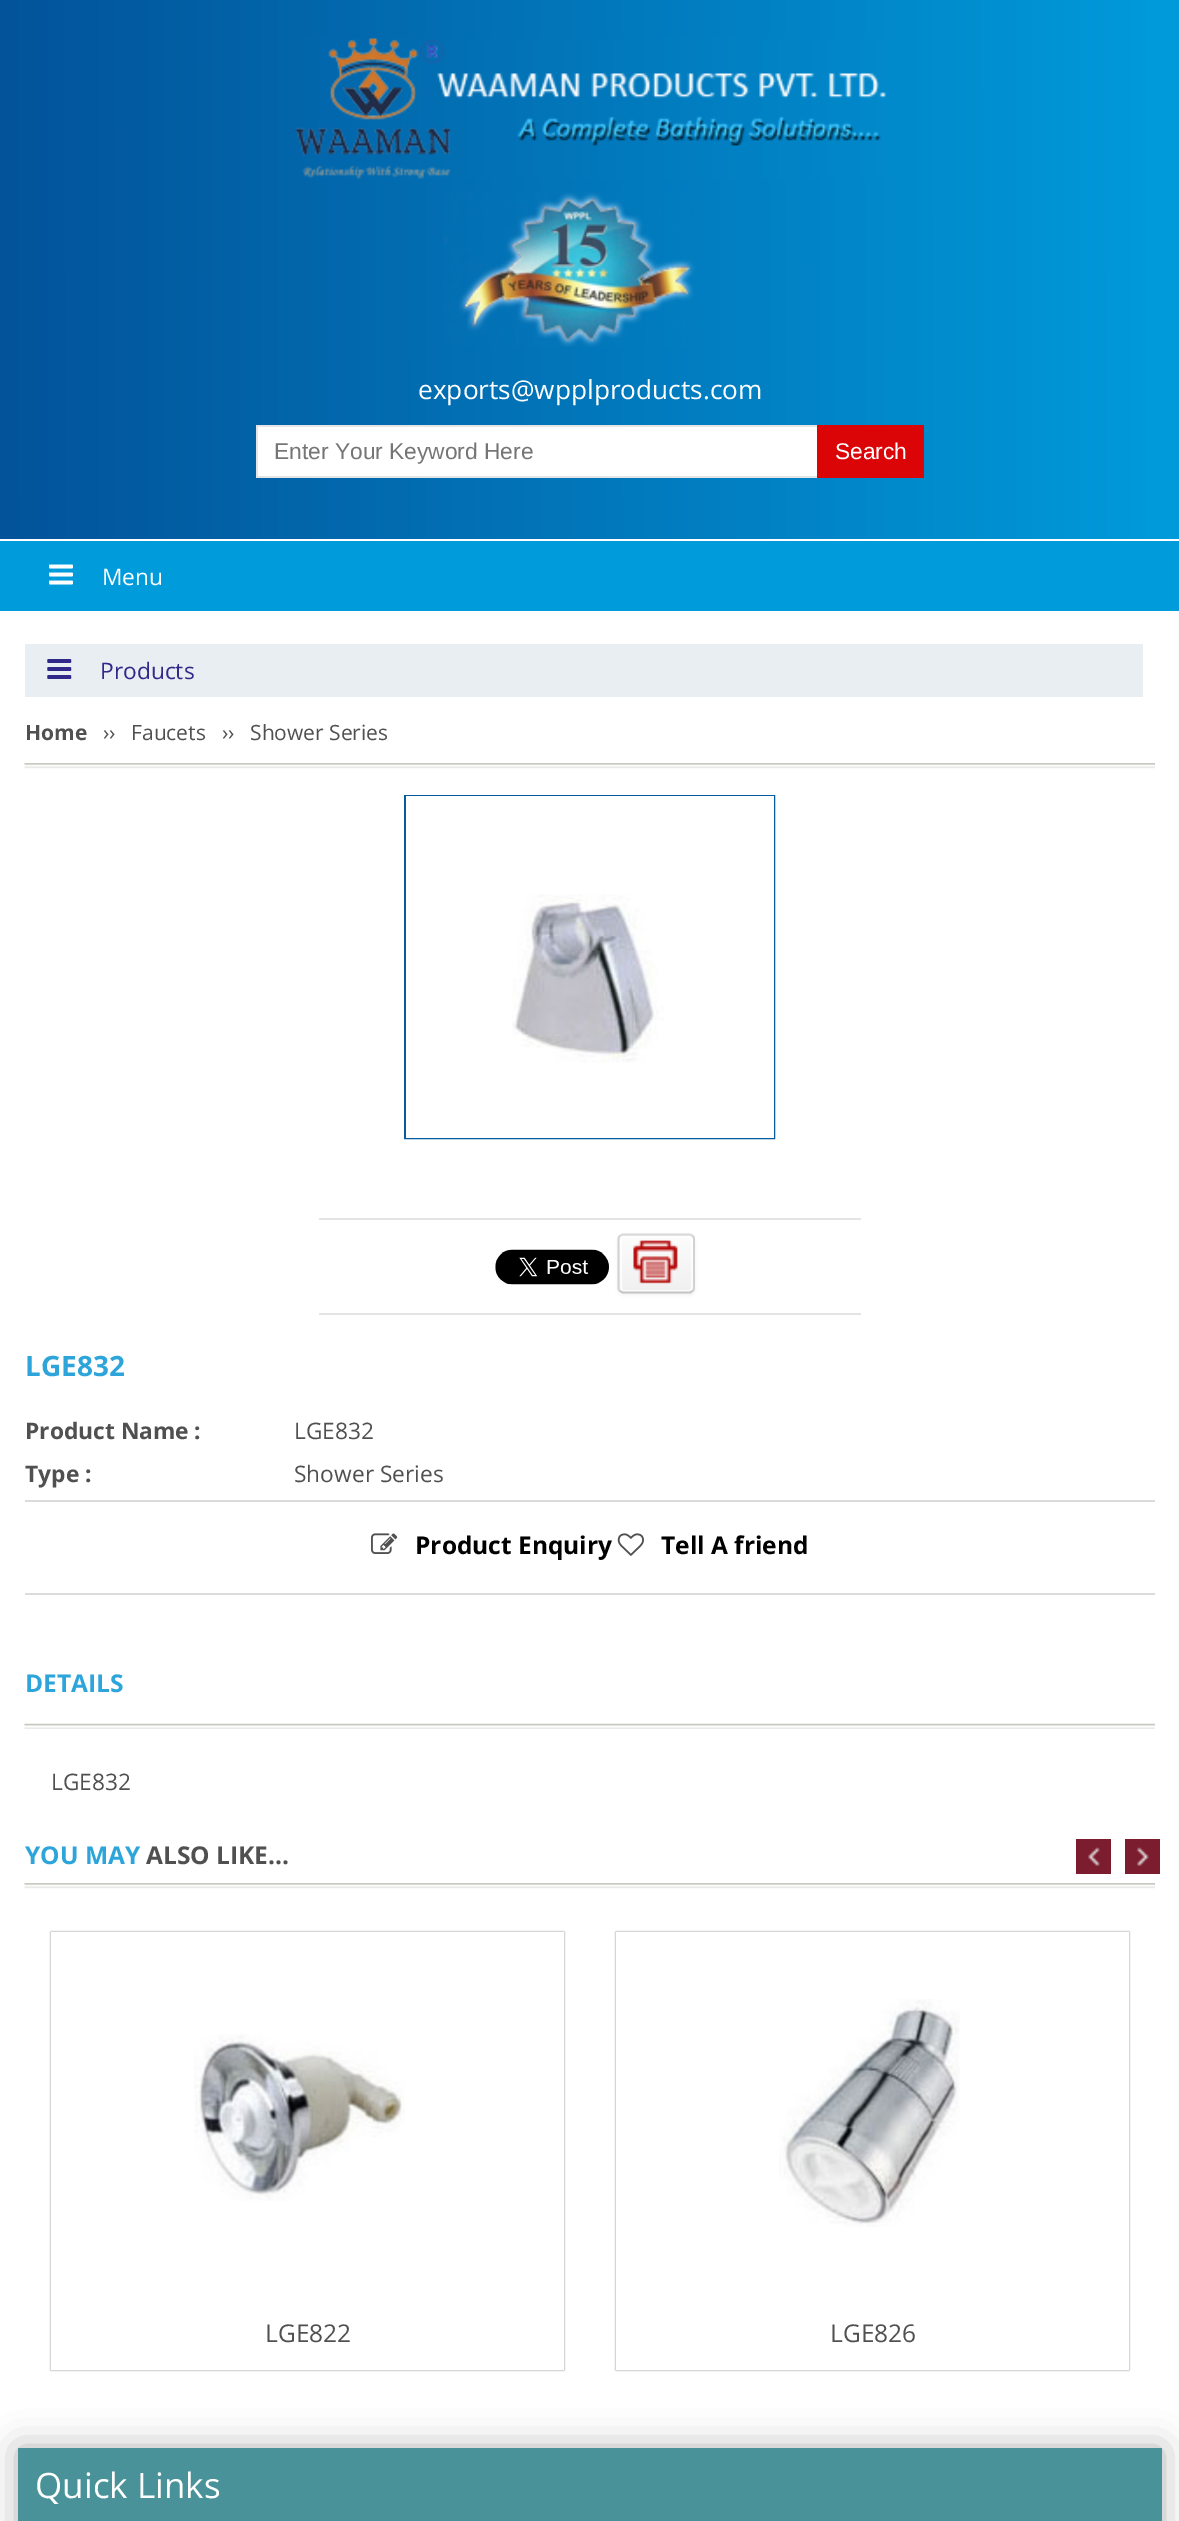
%!PS
<< /PageSize [1179 2521] /PageUsesTransparency true >> setpagedevice
/alpha { dup .setfillconstantalpha .setstrokeconstantalpha } def
/roundrect { 5 dict begin { /r /h /w /y /x } { exch def } forall
  x r add y moveto x w add y 2 copy h add r arct x w add y h add x 1 index r arct
  x y h add x y r arct x y 2 copy exch w add exch r arct closepath end } def
/shadow { 12 dict begin { /a /b /q /h /w /y /x } { exch def } forall gsave /was 0 def
  9 -2 -9 { dup b mul 4 div /e exch def 1 sub .425 mul 2.718 exch exp 1 add a .99 .min exch div /now exch def
    1 1 now sub 1 was sub div sub alpha /was now def
    w h .min e 2 mul add 0 gt { x e sub y e sub w e 2 mul add h e 2 mul add
      q e add b .6 mul add w h .min 2 div e add .min 0 .max roundrect fill } if } for grestore end } def
/picture { 5 dict begin { /h /w /y /x /name } { exch def } forall
  gsave x y translate w h scale
  w h 8 [w 0 0 h 0 0] name (r) file false 3 colorimage grestore end } def
0 .pushpdf14devicefilter
0 2521 translate 1 -1 scale
4 setmiterlimit
1 setgray
0 0 1179 2521 rectfill
gsave newpath 0 0 moveto 1179 0 lineto 1179 539 lineto 0 539 lineto closepath clip newpath
<< /ShadingType 2 /ColorSpace /DeviceRGB /Coords [0 270 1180 269] /Extend [true true] /Function << /FunctionType 2 /Domain [0 1] /C0 [0.012 0.325 0.604] /C1 [0 0.608 0.859] /N 1 >> >> shfill grestore
(img1.rgb) 295 38 591 141 picture
(img2.rgb) 443 192 252 155 picture
/OpenSans-Regular [26.25 0 0 -26.25 0 0] selectfont
418 399 moveto (exports@wpplproducts.com) show
258 427 559 49 rectfill
0.898 setgray
256 425 563 2 rectfill
256 476 563 2 rectfill
256 425 2 53 rectfill
/LiberationSans-Regular [22.75 0 0 -22.75 0 0] selectfont
0.459 setgray
274 459 moveto (Enter Your Keyword Here) show
0.859 0.02 0.027 setrgbcolor
817 425 107 53 rectfill
1 setgray
835 459 moveto (Search) show
0 0.608 0.859 setrgbcolor
0 541 1179 70 rectfill
(img3.rgb) 49 564 24 21 picture
/OpenSans-Regular [22.75 0 0 -22.75 0 0] selectfont
1 setgray
102 585 moveto (Menu) show
0.914 0.933 0.949 setrgbcolor
25 644 1118 53 rectfill
(img4.rgb) 47 659 25 20 picture
0.188 0.161 0.541 setrgbcolor
100 679 moveto (Products) show
(img5.rgb) 24 763 1131 6 picture
/OpenSans-Bold [21 0 0 -21 0 0] selectfont
0.314 setgray
25 740 moveto (Home) show
/OpenSans-Regular [21 0 0 -21 0 0] selectfont
103 740 moveto (››) show
131 740 moveto (Faucets) show
222 740 moveto (››) show
250 740 moveto (Shower Series) show
0.012 0.361 0.627 setrgbcolor
2 setlinewidth
405 796 369 342 rectstroke
1 setgray
406 796 368 342 rectfill
(img6.rgb) 512 894 152 169 picture
0.894 setgray
319 1218 542 2 rectfill
319 1313 542 2 rectfill
(img7.rgb) 495 1249 114 36 picture
0 setgray
618 1236 77 59 5 2 0.05 shadow
gsave
618 1234 77 59 5 roundrect clip newpath
gsave newpath 618 1234 moveto 695 1234 lineto 695 1236 lineto 618 1236 lineto closepath clip newpath
<< /ShadingType 2 /ColorSpace /DeviceRGB /Coords [656 1180 656 1236] /Extend [true true] /Function << /FunctionType 2 /Domain [0 1] /C0 [0.988 0.988 0.988] /C1 [0.941 0.941 0.941] /N 1 >> >> shfill grestore
gsave newpath 618 1236 moveto 695 1236 lineto 695 1292 lineto 618 1292 lineto closepath clip newpath
<< /ShadingType 2 /ColorSpace /DeviceRGB /Coords [656 1236 656 1292] /Extend [true true] /Function << /FunctionType 2 /Domain [0 1] /C0 [0.988 0.988 0.988] /C1 [0.941 0.941 0.941] /N 1 >> >> shfill grestore
grestore
0.7 alpha
1 setgray
621 1237 71 54 3 roundrect stroke
1 alpha
0.855 setgray
1.8 setlinewidth
newpath 620 1236 moveto 622.5 1234.5 lineto 690 1234.5 lineto 692.5 1236 lineto stroke
0.824 setgray
newpath 692.5 1236 moveto 693.5 1236.5 694 1238 694 1239 curveto 694 1288 lineto 694 1289 693.5 1290.5 692.5 1291 curveto stroke
0.773 setgray
newpath 692.5 1291 moveto 690 1292.5 lineto 622.5 1292.5 lineto 620 1291 lineto stroke
0.824 setgray
newpath 620 1291 moveto 619 1290.5 618.5 1289 618.5 1288 curveto 618.5 1239 lineto 618.5 1238 619 1236.5 620 1236 curveto stroke
(img8.rgb) 633 1240 45 44 picture
/OpenSans-Bold [28 0 0 -28 0 0] selectfont
0.176 0.647 0.855 setrgbcolor
25 1376 moveto (LGE832) show
/OpenSans-Bold [22.75 0 0 -22.75 0 0] selectfont
0.314 setgray
25 1439 moveto (Product Name :) show
/OpenSans-Regular [22.75 0 0 -22.75 0 0] selectfont
294 1439 moveto (LGE832) show
/OpenSans-Bold [22.75 0 0 -22.75 0 0] selectfont
25 1482 moveto (Type :) show
/OpenSans-Regular [22.75 0 0 -22.75 0 0] selectfont
294 1482 moveto (Shower Series) show
0.859 setgray
25 1500 1130 2 rectfill
25 1593 1130 2 rectfill
(img9.rgb) 371 1533 27 21 picture
/OpenSans-Bold [24.5 0 0 -24.5 0 0] selectfont
0 setgray
415 1554 moveto (Product Enquiry) show
(img10.rgb) 617 1533 27 23 picture
661 1554 moveto (Tell A friend) show
(img11.rgb) 24 1723 1131 6 picture
0.176 0.647 0.855 setrgbcolor
25 1692 moveto (DETAILS) show
/OpenSans-Regular [22.75 0 0 -22.75 0 0] selectfont
0.314 setgray
51 1790 moveto (LGE832) show
(img5.rgb) 24 1883 1131 6 picture
/OpenSans-Bold [24.5 0 0 -24.5 0 0] selectfont
0.176 0.647 0.855 setrgbcolor
25 1864 moveto (YOU MAY) show
0.314 setgray
146 1864 moveto (ALSO LIKE...) show
0.486 0.114 0.184 setrgbcolor
1076 1839 35 35 rectfill
(img12.rgb) 1088 1847 12 19 picture
1125 1839 35 35 rectfill
(img13.rgb) 1137 1847 12 19 picture
gsave
newpath 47 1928 moveto 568 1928 lineto 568 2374 lineto 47 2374 lineto closepath 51 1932 moveto 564 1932 lineto 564 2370 lineto 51 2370 lineto closepath eoclip newpath
0 setgray
51 1932 513 438 0 1 0.5 shadow
grestore
(img14.rgb) 194 2034 211 167 picture
/OpenSans-Regular [24.5 0 0 -24.5 0 0] selectfont
0.314 setgray
265 2342 moveto (LGE822) show
gsave
newpath 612 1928 moveto 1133 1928 lineto 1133 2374 lineto 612 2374 lineto closepath 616 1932 moveto 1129 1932 lineto 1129 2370 lineto 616 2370 lineto closepath eoclip newpath
0 setgray
616 1932 513 438 0 1 0.5 shadow
grestore
(img15.rgb) 779 1999 181 228 picture
830 2342 moveto (LGE826) show
0 setgray
18 2448 1144 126 0 17.5 0.3 shadow
0.286 0.573 0.6 setrgbcolor
18 2448 1144 73 rectfill
/OpenSans-Regular [35 0 0 -35 0 0] selectfont
1 setgray
35 2498 moveto (Quick Links) show
.poppdf14devicefilter showpage
